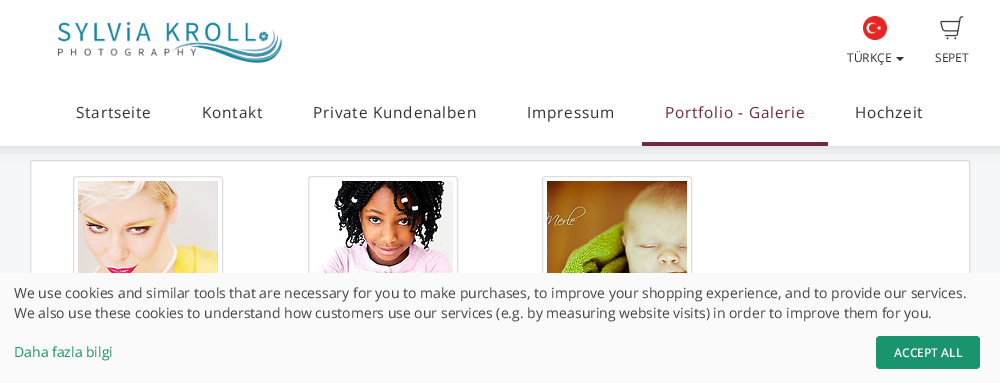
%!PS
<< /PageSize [1000 383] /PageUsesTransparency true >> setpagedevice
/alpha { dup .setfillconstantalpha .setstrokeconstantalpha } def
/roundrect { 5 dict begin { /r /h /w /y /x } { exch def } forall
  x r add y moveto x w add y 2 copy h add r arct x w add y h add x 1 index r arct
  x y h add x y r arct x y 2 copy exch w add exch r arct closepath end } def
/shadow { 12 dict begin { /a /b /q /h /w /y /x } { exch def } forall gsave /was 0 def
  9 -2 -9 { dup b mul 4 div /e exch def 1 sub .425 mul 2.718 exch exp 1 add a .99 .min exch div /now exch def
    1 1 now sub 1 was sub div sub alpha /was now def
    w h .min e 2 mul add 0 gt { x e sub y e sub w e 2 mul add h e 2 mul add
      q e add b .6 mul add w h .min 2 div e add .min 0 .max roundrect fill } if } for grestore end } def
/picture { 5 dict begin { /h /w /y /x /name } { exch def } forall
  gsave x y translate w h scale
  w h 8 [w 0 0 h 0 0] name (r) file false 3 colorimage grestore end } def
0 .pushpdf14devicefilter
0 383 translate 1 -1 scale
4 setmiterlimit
0.965 0.969 0.973 setrgbcolor
0 0 1000 383 rectfill
1 setgray
30.5 160.5 939 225 1.5 roundrect gsave fill grestore
0.867 setgray
stroke
0 setgray
-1 79 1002 68 0 8.5 0.14 shadow
1 setgray
0 0 1000 146 rectfill
(img1.rgb) 57 21 225 43 picture
(img2.rgb) 863 16 24 24 picture
/OpenSans-Regular [12 0 0 -12 0 0] selectfont
0.2 setgray
847 62 moveto (TÜRKÇE) show
newpath 896 57 moveto 904 57 lineto 900 61 lineto closepath fill
(img3.rgb) 940 16 24 24 picture
935 62 moveto (SEPET) show
/OpenSans-Regular [15.4 0 0 -15.4 0 0] selectfont
76 118 moveto 0.75 0 (Startseite) ashow
202 118 moveto 0.75 0 (Kontakt) ashow
313 118 moveto 0.75 0 (Private Kundenalben) ashow
527 118 moveto 0.75 0 (Impressum) ashow
0.443 0.161 0.255 setrgbcolor
642 142 186 4 rectfill
665 118 moveto 0.75 0 (Portfolio - Galerie) ashow
0.2 setgray
855 118 moveto 0.75 0 (Hochzeit) ashow
0.867 setgray
73.5 176.5 149 149 3.5 roundrect stroke
(img4.rgb) 78 181 140 92 picture
308.5 176.5 149 149 3.5 roundrect stroke
(img5.rgb) 313 181 140 92 picture
542.5 176.5 149 149 3.5 roundrect stroke
(img6.rgb) 547 181 140 92 picture
0.98 setgray
0 273 1000 110 rectfill
/OpenSans-Regular [14 0 0 -14 0 0] selectfont
0.267 setgray
14 298 moveto (We use cookies and similar tools that are necessary for you to make purchases, to improve your shopping experience, and to provide our services.) show
14 318 moveto (We also use these cookies to understand how customers use our services \(e.g. by measuring website visits\) in order to improve them for you.) show
0.102 0.576 0.435 setrgbcolor
14 357 moveto (Daha fazla bilgi) show
876 336 104 33 4 roundrect fill
/OpenSans-SemiBold [12 0 0 -12 0 0] selectfont
1 setgray
894 357 moveto (ACCEPT ALL) show
.poppdf14devicefilter showpage
